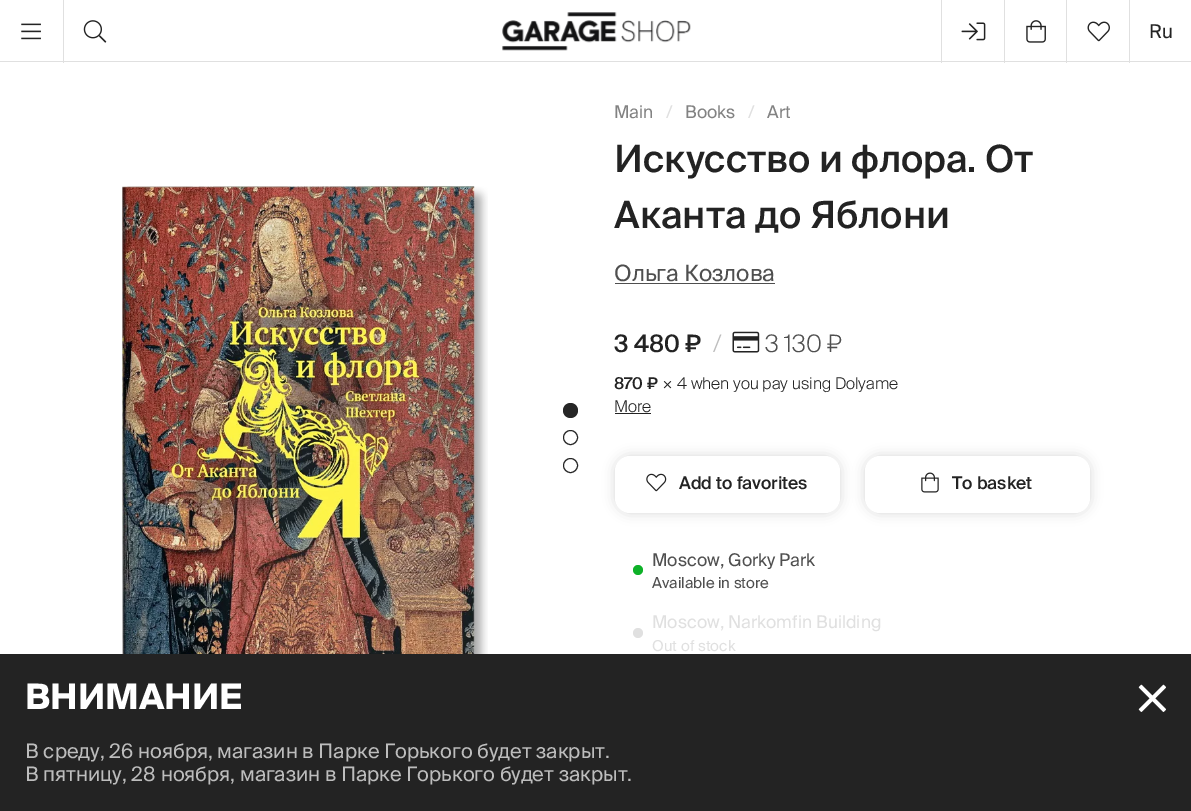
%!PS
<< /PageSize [1191 811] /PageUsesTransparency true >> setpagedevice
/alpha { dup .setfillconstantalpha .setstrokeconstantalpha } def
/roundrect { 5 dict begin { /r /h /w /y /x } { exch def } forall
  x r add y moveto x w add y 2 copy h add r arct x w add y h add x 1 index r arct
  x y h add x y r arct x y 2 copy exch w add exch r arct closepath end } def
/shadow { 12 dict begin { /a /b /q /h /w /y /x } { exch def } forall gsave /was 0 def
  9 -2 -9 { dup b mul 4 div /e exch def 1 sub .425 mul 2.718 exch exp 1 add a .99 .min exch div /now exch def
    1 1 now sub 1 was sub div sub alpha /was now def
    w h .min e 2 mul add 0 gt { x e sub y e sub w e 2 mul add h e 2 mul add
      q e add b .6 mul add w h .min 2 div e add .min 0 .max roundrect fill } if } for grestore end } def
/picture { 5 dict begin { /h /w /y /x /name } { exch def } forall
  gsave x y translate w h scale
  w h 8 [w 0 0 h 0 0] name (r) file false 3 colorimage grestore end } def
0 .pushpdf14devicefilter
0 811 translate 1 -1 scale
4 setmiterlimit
1 setgray
0 0 1191 811 rectfill
0.878 setgray
0 61 1191 1 rectfill
(img1.rgb) 21 23 20 17 picture
63 0 1 63 rectfill
(img2.rgb) 83 20 24 23 picture
(img3.rgb) 502 12 189 39 picture
941 0 1 63 rectfill
(img4.rgb) 961 22 25 19 picture
1004 0 1 63 rectfill
(img5.rgb) 1026 20 20 23 picture
1066 0 1 63 rectfill
(img6.rgb) 1087 21 23 21 picture
1129 0 1 63 rectfill
/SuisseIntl-Regular [19 0 0 -19 0 0] selectfont
0.137 setgray
1149 38 moveto (Ru) show
(img7.rgb) 122 186 366 468 picture
0.149 setgray
newpath 570.5 410.5 7.5 0 360 arc closepath fill
newpath 570.5 437.5 7 0 360 arc closepath stroke
newpath 570.5 465.5 7 0 360 arc closepath stroke
/SuisseIntl-Regular [17.5 0 0 -17.5 0 0] selectfont
0.51 setgray
614 118 moveto (Main) show
0.878 setgray
666 118 moveto (/) show
0.51 setgray
685 118 moveto (Books) show
0.878 setgray
748 118 moveto (/) show
0.51 setgray
767 118 moveto (Art) show
/SuisseIntl-Medium [37.5 0 0 -37.5 0 0] selectfont
0.137 setgray
614 172 moveto (Искусство и флора. От) show
614 228 moveto (Аканта до Яблони) show
/SuisseIntl-Regular [22.5 0 0 -22.5 0 0] selectfont
0.31 setgray
614 281 moveto (Ольга Козлова) show
615 283 160 1 rectfill
/SuisseIntl-Medium [24 0 0 -24 0 0] selectfont
0.137 setgray
614 352 moveto (3 480 ₽) show
/SuisseIntl-Light [24 0 0 -24 0 0] selectfont
0.741 setgray
713 352 moveto (/) show
(img8.rgb) 732 331 28 22 picture
0.31 setgray
765 352 moveto (3 130 ₽) show
/SuisseIntl-Medium [16.25 0 0 -16.25 0 0] selectfont
0.137 setgray
614 389 moveto (870 ₽) show
/SuisseIntl-Light [16.25 0 0 -16.25 0 0] selectfont
662 389 moveto (× 4 when you pay using Dolyame) show
614 412 moveto (More) show
615 413 36 1 rectfill
0 setgray
615 456 225 57 15 6 0.15 shadow
1 setgray
615 456 225 57 15 roundrect fill
(img9.rgb) 646 473 21 19 picture
/SuisseIntl-Medium [17.5 0 0 -17.5 0 0] selectfont
0.137 setgray
679 489 moveto (Add to favorites) show
0 setgray
865 456 225 57 15 6 0.15 shadow
1 setgray
865 456 225 57 15 roundrect fill
(img10.rgb) 921 472 18 21 picture
0.137 setgray
952 489 moveto (To basket) show
0.055 0.694 0.157 setrgbcolor
newpath 638 570 5 0 360 arc closepath fill
/SuisseIntl-Regular [17.5 0 0 -17.5 0 0] selectfont
0.31 setgray
652 566 moveto (Moscow, Gorky Park) show
/SuisseIntl-Regular [15 0 0 -15 0 0] selectfont
652 588 moveto (Available in store) show
/SuisseIntl-Regular [17.5 0 0 -17.5 0 0] selectfont
0.878 setgray
652 628 moveto (Moscow, Narkomfin Building) show
newpath 638 633 5 0 360 arc closepath fill
/SuisseIntl-Regular [15 0 0 -15 0 0] selectfont
652 651 moveto (Out of stock) show
0.137 setgray
0 654 1191 157 rectfill
/SuisseIntl-Bold [35 0 0 -35 0 0] selectfont
1 setgray
25 709 moveto (ВНИМАНИЕ) show
(img11.rgb) 1138 684 28 28 picture
/SuisseIntl-Regular [20 0 0 -20 0 0] selectfont
0.741 setgray
25 758 moveto (В среду, 26 ноября, магазин в Парке Горького будет закрыт.) show
25 781 moveto (В пятницу, 28 ноября, магазин в Парке Горького будет закрыт.) show
.poppdf14devicefilter showpage
